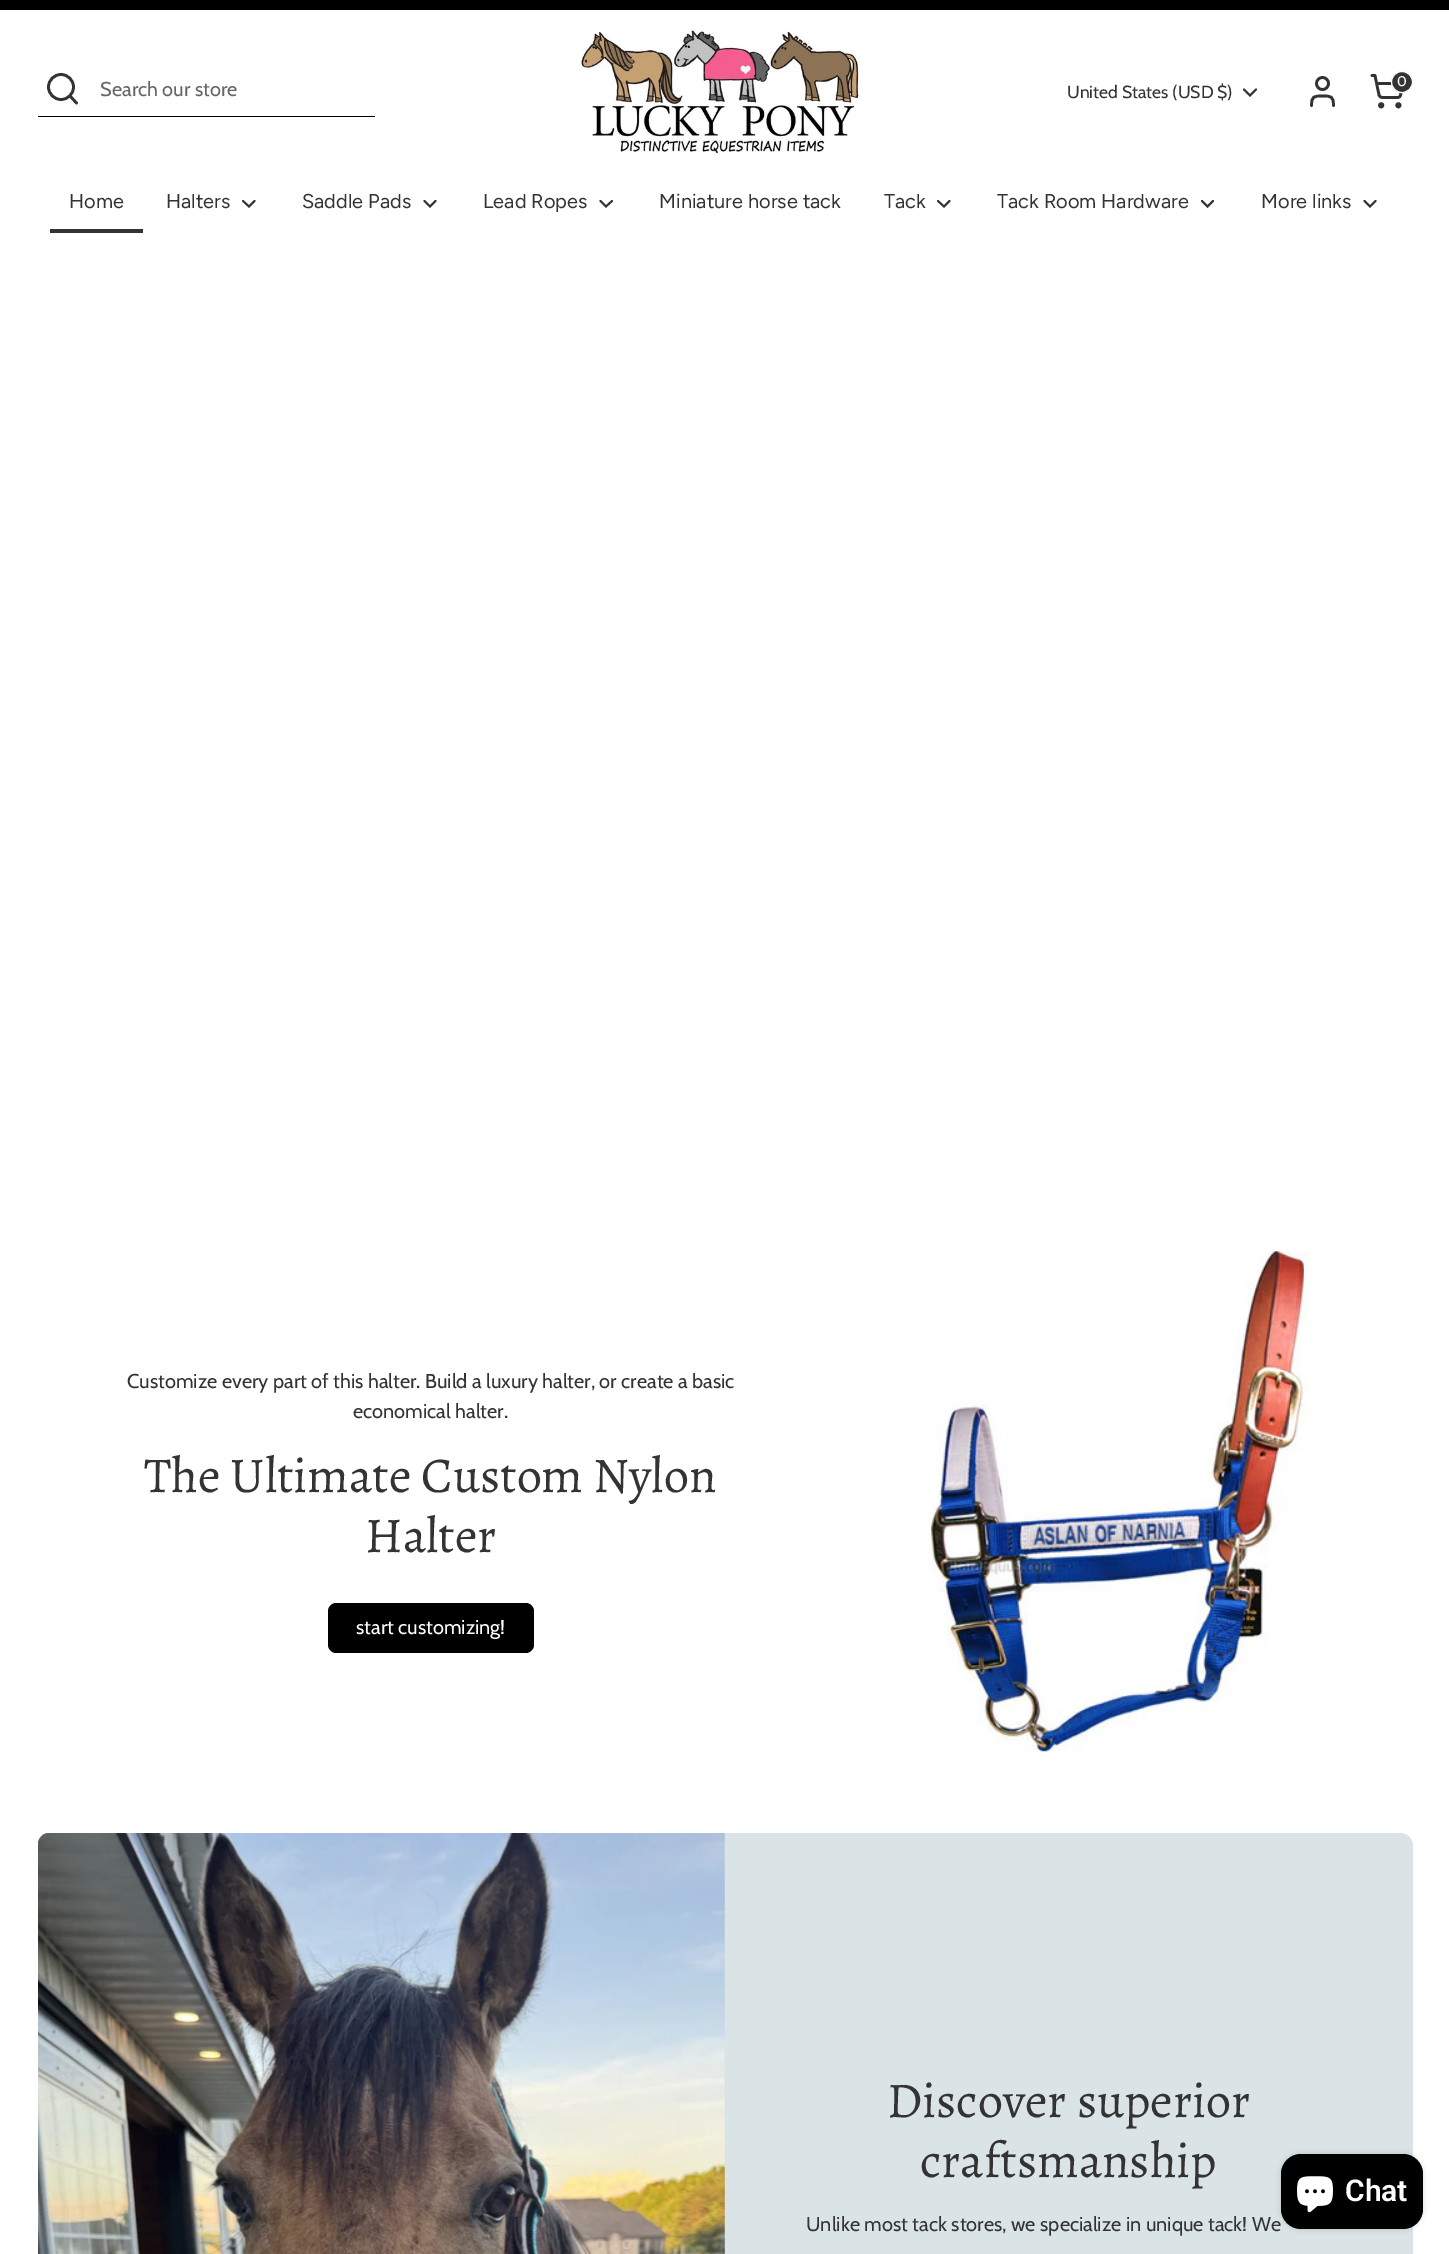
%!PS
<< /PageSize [1449 2254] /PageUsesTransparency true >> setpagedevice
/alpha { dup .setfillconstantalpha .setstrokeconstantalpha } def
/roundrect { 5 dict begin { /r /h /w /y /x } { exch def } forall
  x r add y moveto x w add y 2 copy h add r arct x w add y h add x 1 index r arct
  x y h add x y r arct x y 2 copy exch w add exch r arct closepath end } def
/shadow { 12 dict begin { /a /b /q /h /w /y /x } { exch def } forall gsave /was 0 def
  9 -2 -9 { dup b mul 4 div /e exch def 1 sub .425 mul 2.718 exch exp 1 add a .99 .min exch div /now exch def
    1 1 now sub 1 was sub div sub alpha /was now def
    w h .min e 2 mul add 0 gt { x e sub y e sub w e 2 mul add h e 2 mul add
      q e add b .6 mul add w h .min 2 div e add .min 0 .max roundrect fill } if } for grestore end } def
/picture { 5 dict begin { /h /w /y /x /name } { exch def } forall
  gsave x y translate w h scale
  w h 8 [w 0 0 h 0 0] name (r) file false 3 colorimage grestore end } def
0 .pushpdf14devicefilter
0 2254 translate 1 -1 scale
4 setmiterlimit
1 setgray
0 0 1449 2254 rectfill
0 setgray
0 0 1449 10 rectfill
0.2 setgray
2.7 setlinewidth
newpath 61 87 12.5 0 360 arc closepath stroke
1 setlinecap
1 setlinejoin
newpath 76.5 103 moveto 70 96 lineto stroke
0 setgray
38 116 337 1 rectfill
/Cabin-Regular [20 0 0 -20 0 0] selectfont
0.4 setgray
100 96 moveto (Search our store) show
(img1.rgb) 581 29 280 125 picture
0.2 setgray
newpath 1333.5 105.5 moveto 1333.5 96 1331 96 1322.5 96 curveto 1314 96 1311.5 96 1311.5 105.5 curveto stroke
0 setlinecap
0 setlinejoin
newpath 1322.5 83.5 6 0 360 arc closepath stroke
newpath 1381.2 105.3 1.6 0 360 arc closepath stroke
newpath 1398.4 105.3 1.6 0 360 arc closepath stroke
1 setlinecap
1 setlinejoin
newpath 1372 75.5 moveto 1375 75.5 lineto 1379 95 lineto 1379.5 96.5 1381 97.5 1382.5 97.5 curveto 1397.5 97.5 lineto 1399 97.5 1400.5 96.5 1400.5 95 curveto 1403.5 83.5 lineto 1377 83.5 lineto stroke
newpath 1402 82 10.5 0 360 arc closepath gsave fill grestore
1 setgray
1 setlinewidth
0 setlinecap
0 setlinejoin
stroke
/Cabin-Regular [14 0 0 -14 0 0] selectfont
1397 86 moveto (0) show
/Cabin-Regular [17.5 0 0 -17.5 0 0] selectfont
0.2 setgray
1067 98 moveto (United States \(USD $\)) show
2.1 setlinewidth
1 setlinecap
newpath 1244 89.5 moveto 1250 95.5 lineto 1256 89.5 lineto stroke
/Figtree-Regular [20 0 0 -20 0 0] selectfont
69 208 moveto (Home) show
50 229 93 4 rectfill
166 208 moveto (Halters) show
1.9 setlinewidth
newpath 243 201 moveto 249 206.5 lineto 254.5 201 lineto stroke
302 208 moveto (Saddle Pads) show
newpath 424.5 201 moveto 430 206.5 lineto 435.5 201 lineto stroke
483 208 moveto (Lead Ropes) show
newpath 600.5 201 moveto 606 206.5 lineto 612 201 lineto stroke
659 208 moveto (Miniature horse tack) show
884 208 moveto (Tack) show
newpath 938 201 moveto 944 206.5 lineto 949.5 201 lineto stroke
997 208 moveto (Tack Room Hardware) show
newpath 1202 201 moveto 1207.5 206.5 lineto 1213 201 lineto stroke
1261 208 moveto (More links) show
newpath 1364.5 201 moveto 1370 206.5 lineto 1375.5 201 lineto stroke
/Cabin-Regular [20 0 0 -20 0 0] selectfont
127 1388 moveto (Customize every part of this halter. Build a luxury halter, or create a basic) show
353 1418 moveto (economical halter.) show
/Alegreya-Regular [50.1 0 0 -50.1 0 0] selectfont
144 1492 moveto (The Ultimate Custom Nylon) show
365 1552 moveto (Halter) show
0 setgray
newpath 336 1603 moveto 526 1603 lineto 530 1603 534 1607 534 1611 curveto 534 1645 lineto 534 1649 530 1653 526 1653 curveto 336 1653 lineto 332 1653 328 1649 328 1645 curveto 328 1611 lineto 328 1607 332 1603 336 1603 curveto closepath fill
329 1604 204 47 6 roundrect fill
/Cabin-Regular [20 0 0 -20 0 0] selectfont
1 setgray
356 1634 moveto (start customizing!) show
(img2.rgb) 927 1251 381 501 picture
0.855 0.894 0.902 setrgbcolor
38 1833 1375 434 13 roundrect fill
(img3.rgb) 38 1833 687 421 picture
/Alegreya-Regular [50.1 0 0 -50.1 0 0] selectfont
0.2 setgray
887 2117 moveto (Discover superior) show
920 2177 moveto (craftsmanship) show
/Cabin-Regular [20 0 0 -20 0 0] selectfont
806 2231 moveto (Unlike most tack stores, we specialize in unique tack! We) show
0 setgray
1281 2154 142 75 20 3 0.15 shadow
1281 2154 142 75 20 roundrect fill
(img4.rgb) 1297 2176 36 37 picture
/Roboto-SemiBold [30 0 0 -30 0 0] selectfont
1 setgray
1345 2201 moveto (Chat) show
.poppdf14devicefilter showpage
